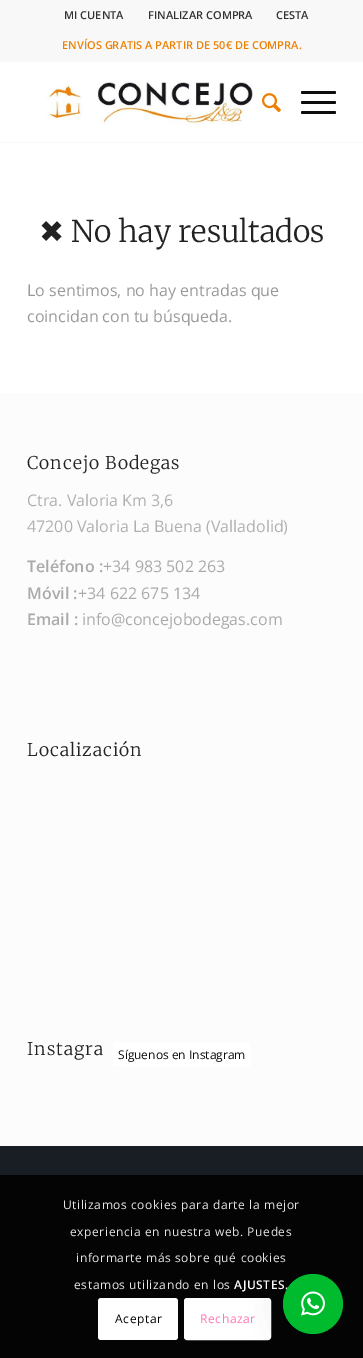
%!PS
<< /PageSize [363 1358] /PageUsesTransparency true >> setpagedevice
/alpha { dup .setfillconstantalpha .setstrokeconstantalpha } def
/roundrect { 5 dict begin { /r /h /w /y /x } { exch def } forall
  x r add y moveto x w add y 2 copy h add r arct x w add y h add x 1 index r arct
  x y h add x y r arct x y 2 copy exch w add exch r arct closepath end } def
/shadow { 12 dict begin { /a /b /q /h /w /y /x } { exch def } forall gsave /was 0 def
  9 -2 -9 { dup b mul 4 div /e exch def 1 sub .425 mul 2.718 exch exp 1 add a .99 .min exch div /now exch def
    1 1 now sub 1 was sub div sub alpha /was now def
    w h .min e 2 mul add 0 gt { x e sub y e sub w e 2 mul add h e 2 mul add
      q e add b .6 mul add w h .min 2 div e add .min 0 .max roundrect fill } if } for grestore end } def
/picture { 5 dict begin { /h /w /y /x /name } { exch def } forall
  gsave x y translate w h scale
  w h 8 [w 0 0 h 0 0] name (r) file false 3 colorimage grestore end } def
0 .pushpdf14devicefilter
0 1358 translate 1 -1 scale
4 setmiterlimit
0.098 0.118 0.141 setrgbcolor
0 0 363 1358 rectfill
0.973 setgray
0 0 363 62 rectfill
1 setgray
0 62 363 331 rectfill
0.973 setgray
0 142 363 1 rectfill
(img1.rgb) 45 81 208 44 picture
(img2.rgb) 262 93 19 20 picture
0.051 0.051 0.059 setrgbcolor
301 101 35 3 1.5 roundrect fill
301 91 35 3 1.5 roundrect fill
301 111 35 3 1.5 roundrect fill
/OpenSans-SemiBold [11 0 0 -11 0 0] selectfont
0.2 0.196 0.2 setrgbcolor
64 19 moveto (MI CUENTA) show
148 19 moveto (FINALIZAR COMPRA) show
276 19 moveto (CESTA) show
0.929 0.502 0.016 setrgbcolor
62 49 moveto (ENVÍOS GRATIS A PARTIR DE 50€ DE COMPRA.) show
/DejaVuSans-Regular [30 0 0 -30 0 0] selectfont
0.133 setgray
39 242 moveto (✖) show
/Merriweather-Light [30 0 0 -30 0 0] selectfont
71 242 moveto (No hay resultados) show
/OpenSans-Regular [16 0 0 -16 0 0] selectfont
0.6 setgray
27 296 moveto (Lo sentimos, no hay entradas que) show
27 322 moveto (coincidan con tu búsqueda.) show
0.988 setgray
0 393 363 753 rectfill
/Merriweather-Light [17.5 0 0 -17.5 0 0] selectfont
0.133 setgray
27 469 moveto 1 0 (Concejo Bodegas) ashow
/OpenSans-Regular [16 0 0 -16 0 0] selectfont
0.69 setgray
27 506 moveto (Ctra. Valoria Km 3,6) show
27 532 moveto (47200 Valoria La Buena \(Valladolid\)) show
/OpenSans-SemiBold [16 0 0 -16 0 0] selectfont
0.667 setgray
27 572 moveto (Teléfono :) show
/OpenSans-Regular [16 0 0 -16 0 0] selectfont
103 572 moveto (+34 983 502 263) show
/OpenSans-SemiBold [16 0 0 -16 0 0] selectfont
27 599 moveto (Móvil :) show
/OpenSans-Regular [16 0 0 -16 0 0] selectfont
78 599 moveto (+34 622 675 134) show
/OpenSans-SemiBold [16 0 0 -16 0 0] selectfont
27 625 moveto (Email :) show
/OpenSans-Regular [16 0 0 -16 0 0] selectfont
82 625 moveto (info@concejobodegas.com) show
/Merriweather-Light [17.5 0 0 -17.5 0 0] selectfont
0.133 setgray
27 756 moveto 1 0 (Localización) ashow
27 1055 moveto 1 0 (Instagra) ashow
0.95 alpha
1 setgray
113 1043 137 24 rectfill
/OpenSans-Regular [12 0 0 -12 0 0] selectfont
1 alpha
0.051 setgray
118 1059 moveto (Síguenos en Instagram) show
0.85 alpha
0 setgray
0 1175 363 183 rectfill
1 alpha
0.902 setgray
63 1209 moveto 0.6 0 (Utilizamos cookies para darte la mejor) ashow
70 1236 moveto 0.6 0 (experiencia en nuestra web. Puedes) ashow
76 1262 moveto 0.6 0 (informarte más sobre qué cookies) ashow
74 1289 moveto 0.6 0 (estamos utilizando en los) ashow
/OpenSans-SemiBold [12 0 0 -12 0 0] selectfont
1 setgray
234 1289 moveto 0.6 0 (AJUSTES.) ashow
98 1298 80 42 3 roundrect fill
/OpenSans-Regular [12 0 0 -12 0 0] selectfont
0 setgray
115 1323 moveto 0.6 0 (Aceptar) ashow
1 setgray
185 1299 85 40 2 roundrect gsave fill grestore
2 setlinewidth
stroke
1 0.459 0.71 setrgbcolor
200 1323 moveto 0.6 0 (Rechazar) ashow
0 setgray
283 1276 60 60 30 16 0.16 shadow
0 0.733 0.176 setrgbcolor
newpath 313 1304 30 0 360 arc closepath fill
(img3.rgb) 301 1291 24 25 picture
.poppdf14devicefilter showpage
